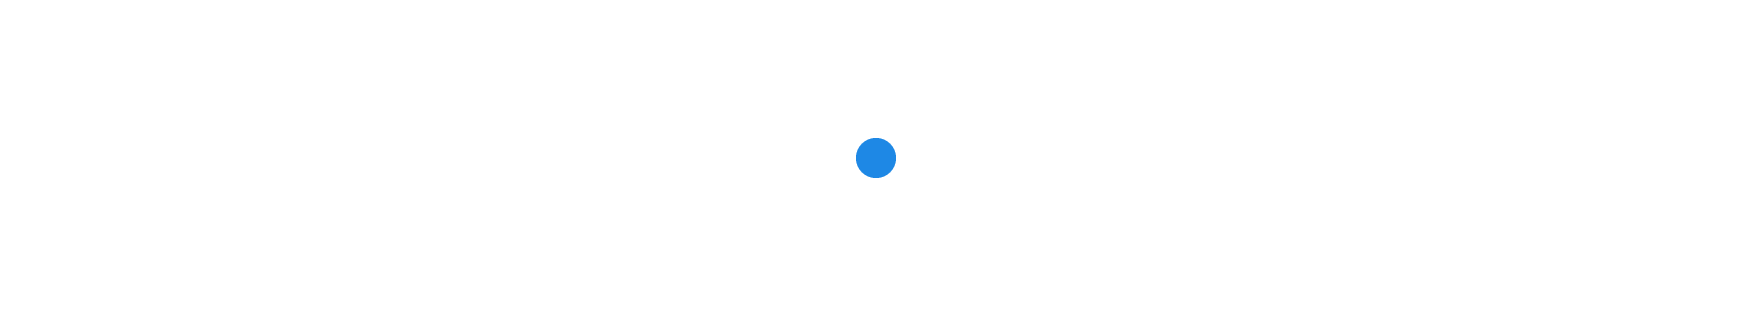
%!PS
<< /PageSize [1752 315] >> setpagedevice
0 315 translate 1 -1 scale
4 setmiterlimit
1 setgray
0 0 1752 315 rectfill
0.118 0.533 0.898 setrgbcolor
newpath 876 158 20 0 360 arc closepath fill
showpage
